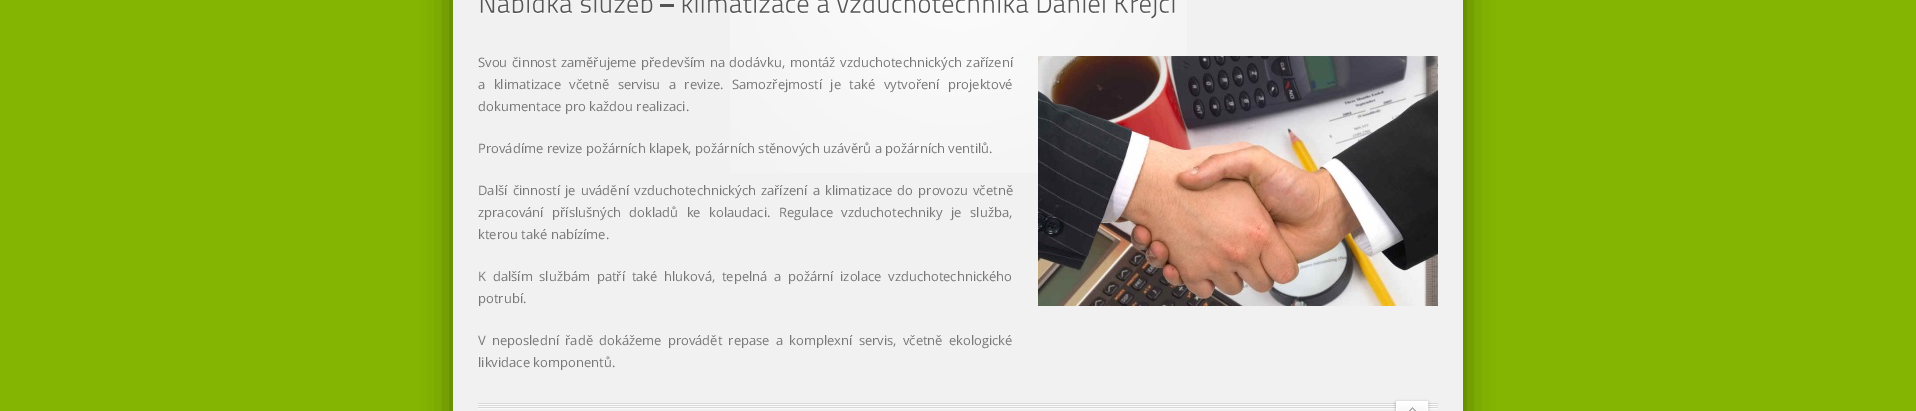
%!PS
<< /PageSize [1916 411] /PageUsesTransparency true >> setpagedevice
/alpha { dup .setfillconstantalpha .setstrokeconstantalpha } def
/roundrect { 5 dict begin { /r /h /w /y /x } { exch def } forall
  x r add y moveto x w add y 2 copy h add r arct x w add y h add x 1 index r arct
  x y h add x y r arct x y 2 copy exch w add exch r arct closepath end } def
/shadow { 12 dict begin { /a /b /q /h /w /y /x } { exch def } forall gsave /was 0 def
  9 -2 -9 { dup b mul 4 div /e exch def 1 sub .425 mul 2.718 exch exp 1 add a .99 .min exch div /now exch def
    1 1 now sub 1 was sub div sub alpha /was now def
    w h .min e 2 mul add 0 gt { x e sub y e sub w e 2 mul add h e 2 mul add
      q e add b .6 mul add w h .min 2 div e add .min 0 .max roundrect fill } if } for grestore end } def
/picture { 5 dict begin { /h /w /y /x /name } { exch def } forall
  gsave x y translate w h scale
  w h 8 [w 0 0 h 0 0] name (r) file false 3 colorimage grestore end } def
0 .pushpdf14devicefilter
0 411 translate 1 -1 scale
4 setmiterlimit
0.518 0.71 0.008 setrgbcolor
0 0 1916 411 rectfill
0 setgray
453 -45 1010 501 0 15 0.4 shadow
0.945 setgray
453 0 1010 411 rectfill
(img1.rgb) 730 0 457 173 picture
(img2.rgb) 480 0 92 14 picture
(img3.rgb) 580 0 73 14 picture
0.333 setgray
660 4 14 3 rectfill
(img4.rgb) 682 0 127 14 picture
(img5.rgb) 817 0 13 14 picture
(img6.rgb) 837 0 192 14 picture
(img7.rgb) 1037 0 68 14 picture
(img8.rgb) 1115 0 60 19 picture
/OpenSans-Regular [13 0 0 -13 0 0] selectfont
0.467 setgray
478 67 moveto 1.25 0 32 (Svou činnost zaměřujeme především na dodávku, montáž vzduchotechnických zařízení) widthshow
(img9.rgb) 1038 56 400 250 picture
478 89 moveto 5 0 32 (a klimatizace včetně servisu a revize. Samozřejmostí je také vytvoření projektové) widthshow
478 111 moveto (dokumentace pro každou realizaci.) show
478 153 moveto (Provádíme revize požárních klapek, požárních stěnových uzávěrů a požárních ventilů.) show
478 195 moveto 1.75 0 32 (Další činností je uvádění vzduchotechnických zařízení a klimatizace do provozu včetně) widthshow
478 217 moveto 5 0 32 (zpracování příslušných dokladů ke kolaudaci. Regulace vzduchotechniky je služba,) widthshow
478 239 moveto (kterou také nabízíme.) show
478 281 moveto 3.25 0 32 (K dalším službám patří také hluková, tepelná a požární izolace vzduchotechnického) widthshow
478 303 moveto (potrubí.) show
478 345 moveto 2.75 0 32 (V neposlední řadě dokážeme provádět repase a komplexní servis, včetně ekologické) widthshow
478 367 moveto (likvidace komponentů.) show
(img10.rgb) 478 403 960 6 picture
0 setgray
1396 402 32 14 0 1.5 0.3 shadow
(img11.rgb) 1397 402 30 9 picture
1 setgray
1396.5 401.5 31 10 rectstroke
.poppdf14devicefilter showpage
